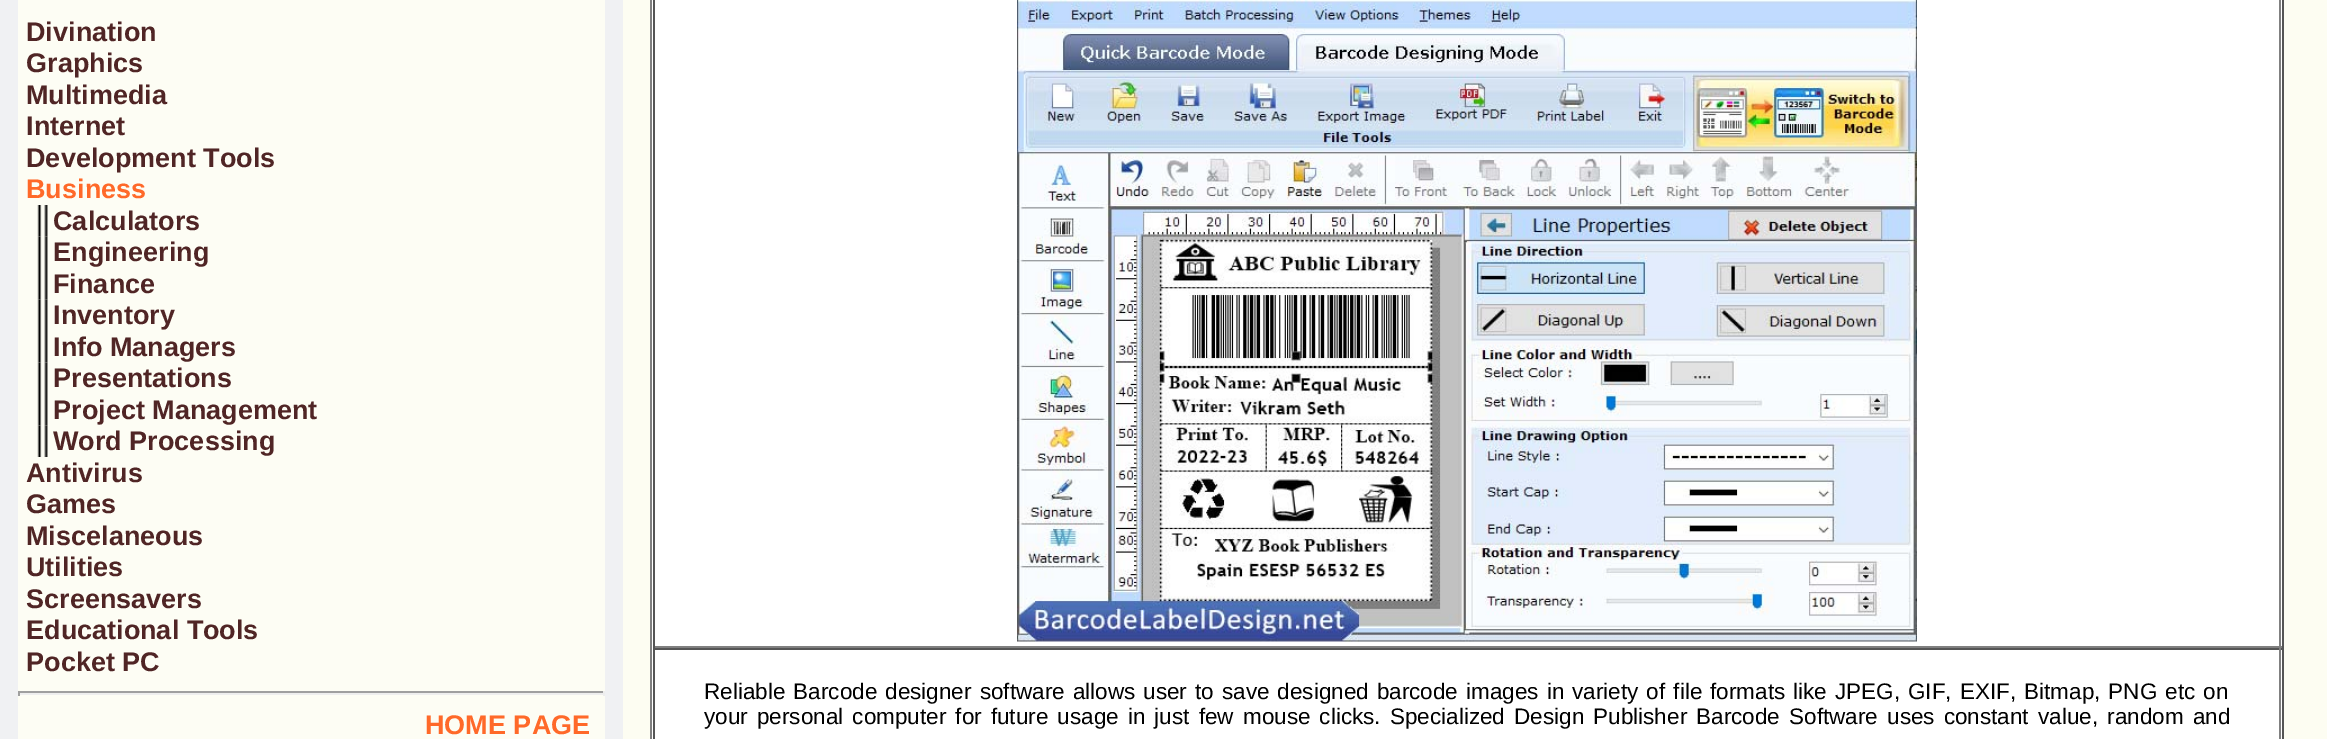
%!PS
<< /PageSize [2327 739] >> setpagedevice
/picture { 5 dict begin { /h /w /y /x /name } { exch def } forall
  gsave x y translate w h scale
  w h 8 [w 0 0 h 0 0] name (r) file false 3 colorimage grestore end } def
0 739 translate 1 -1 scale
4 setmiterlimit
0.992 0.992 0.949 setrgbcolor
0 0 2327 739 rectfill
0.941 0.945 0.953 setrgbcolor
0 0 623 739 rectfill
0.992 0.992 0.957 setrgbcolor
18 0 587 739 rectfill
/LiberationSans-Bold [27 0 0 -27 0 0] selectfont
0.314 0.145 0.145 setrgbcolor
26 41 moveto (Divination) show
26 72 moveto (Graphics) show
26 104 moveto (Multimedia) show
26 135 moveto (Internet) show
26 167 moveto (Development Tools) show
1 0.412 0.161 setrgbcolor
26 198 moveto (Business) show
(img1.rgb) 37 205 11 32 picture
0.314 0.145 0.145 setrgbcolor
53 230 moveto (Calculators) show
(img2.rgb) 37 236 11 32 picture
53 261 moveto (Engineering) show
(img1.rgb) 37 268 11 32 picture
53 293 moveto (Finance) show
(img2.rgb) 37 299 11 32 picture
53 324 moveto (Inventory) show
(img1.rgb) 37 331 11 32 picture
53 356 moveto (Info Managers) show
(img2.rgb) 37 362 11 32 picture
53 387 moveto (Presentations) show
(img1.rgb) 37 394 11 32 picture
53 419 moveto (Project Management) show
(img2.rgb) 37 425 11 32 picture
53 450 moveto (Word Processing) show
26 482 moveto (Antivirus) show
26 513 moveto (Games) show
26 545 moveto (Miscelaneous) show
26 576 moveto (Utilities) show
26 608 moveto (Screensavers) show
26 639 moveto (Educational Tools) show
26 671 moveto (Pocket PC) show
0.624 setgray
18 691 587 2 rectfill
0.933 setgray
603 691 2 5 rectfill
18 693 587 2 rectfill
0.624 setgray
18 691 2 5 rectfill
1 0.412 0.161 setrgbcolor
425 734 moveto (HOME PAGE) show
1 setgray
652 0 1630 739 rectfill
0.333 setgray
2282 0 2 739 rectfill
0.502 setgray
650 0 2 739 rectfill
2279 0 2 648 rectfill
653 646 1629 2 rectfill
0.333 setgray
653 0 2 648 rectfill
(img3.rgb) 1017 0 900 642 picture
653 648 1629 2 rectfill
0.502 setgray
2279 648 2 91 rectfill
0.333 setgray
653 648 2 91 rectfill
/LiberationSans-Regular [22.5 0 0 -22.5 0 0] selectfont
0 setgray
704 699 moveto 1.8 0 32 (Reliable Barcode designer software allows user to save designed barcode images in variety of file formats like JPEG, GIF, EXIF, Bitmap, PNG etc on) widthshow
704 724 moveto 2.9 0 32 (your personal computer for future usage in just few mouse clicks. Specialized Design Publisher Barcode Software uses constant value, random and) widthshow
showpage
